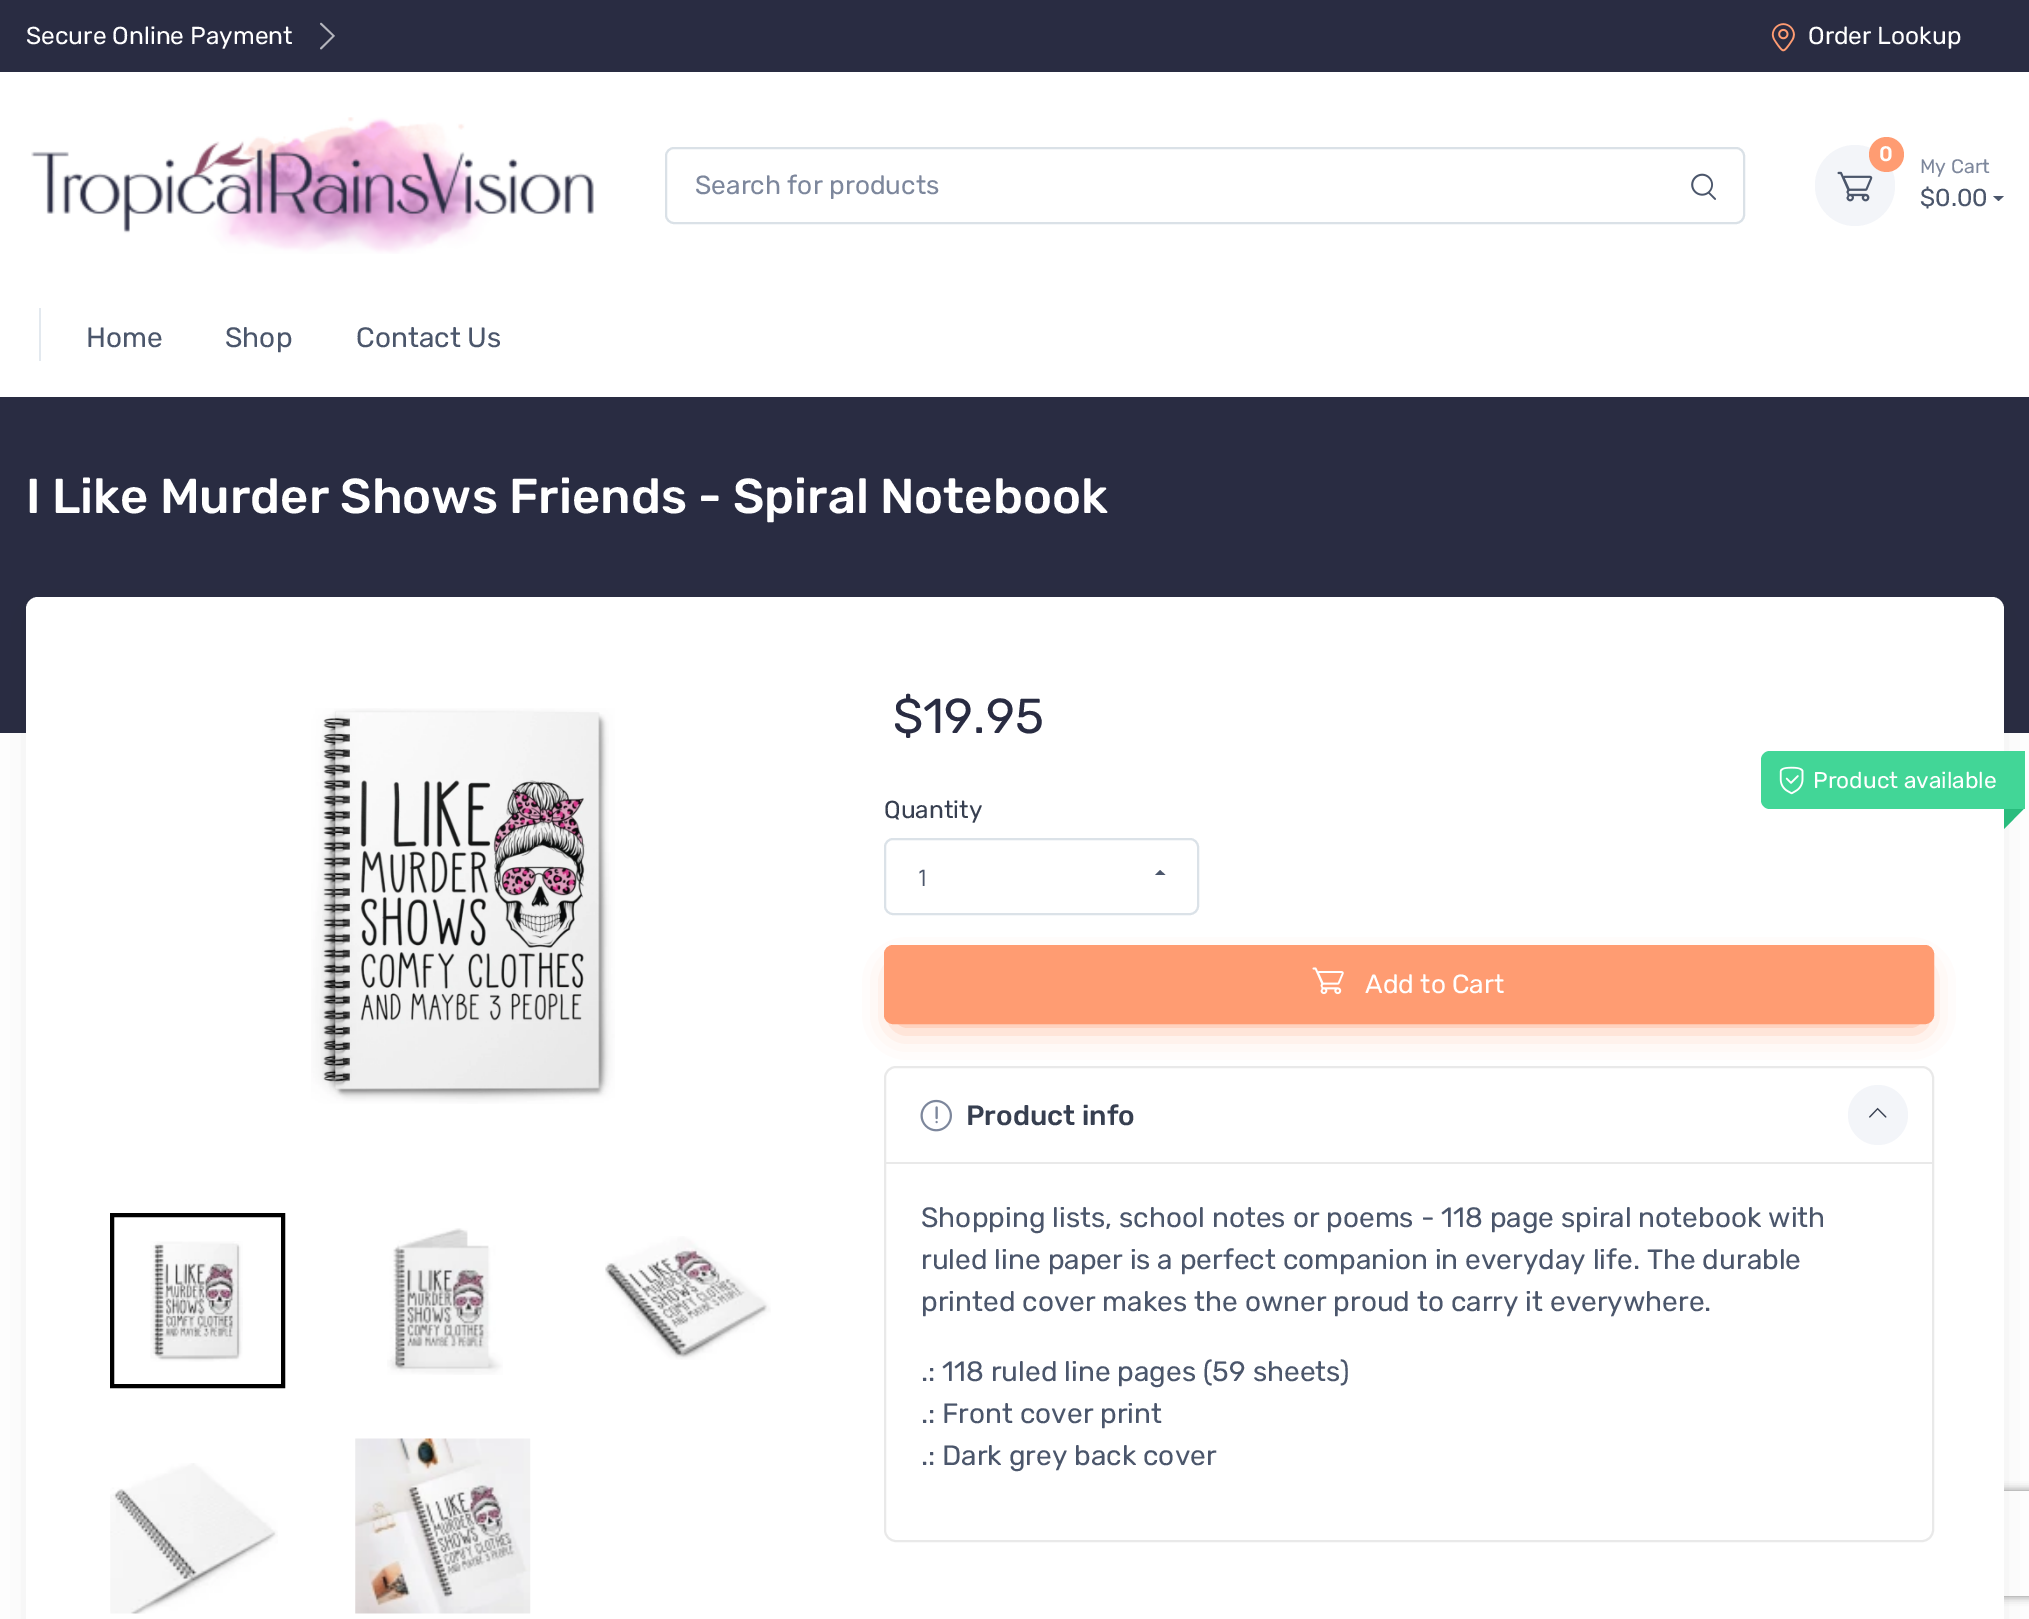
%!PS
<< /PageSize [2029 1619] /PageUsesTransparency true >> setpagedevice
/alpha { dup .setfillconstantalpha .setstrokeconstantalpha } def
/roundrect { 5 dict begin { /r /h /w /y /x } { exch def } forall
  x r add y moveto x w add y 2 copy h add r arct x w add y h add x 1 index r arct
  x y h add x y r arct x y 2 copy exch w add exch r arct closepath end } def
/shadow { 12 dict begin { /a /b /q /h /w /y /x } { exch def } forall gsave /was 0 def
  9 -2 -9 { dup b mul 4 div /e exch def 1 sub .425 mul 2.718 exch exp 1 add a .99 .min exch div /now exch def
    1 1 now sub 1 was sub div sub alpha /was now def
    w h .min e 2 mul add 0 gt { x e sub y e sub w e 2 mul add h e 2 mul add
      q e add b .6 mul add w h .min 2 div e add .min 0 .max roundrect fill } if } for grestore end } def
/picture { 5 dict begin { /h /w /y /x /name } { exch def } forall
  gsave x y translate w h scale
  w h 8 [w 0 0 h 0 0] name (r) file false 3 colorimage grestore end } def
0 .pushpdf14devicefilter
0 1619 translate 1 -1 scale
4 setmiterlimit
1 setgray
0 0 2029 1619 rectfill
0.161 0.173 0.259 setrgbcolor
0 0 2029 72 rectfill
/Rubik-Regular [24.5 0 0 -24.5 0 0] selectfont
1 setgray
26 44 moveto (Secure Online Payment) show
(img1.rgb) 320 22 15 28 picture
(img2.rgb) 1771 23 24 29 picture
1808 44 moveto (Order Lookup) show
(img3.rgb) 31 117 563 137 picture
0.855 0.882 0.906 setrgbcolor
2 setlinewidth
666 148 1078 75 8 roundrect stroke
/Rubik-Regular [26.25 0 0 -26.25 0 0] selectfont
0.49 0.529 0.612 setrgbcolor
695 194 moveto (Search for products) show
(img4.rgb) 1691 173 25 27 picture
0.953 0.961 0.976 setrgbcolor
1815 145 80 81 40 roundrect fill
(img5.rgb) 1837 171 36 31 picture
1 0.612 0.447 setrgbcolor
newpath 1886.5 154.5 17.5 0 360 arc closepath fill
/Rubik-Medium [21 0 0 -21 0 0] selectfont
1 setgray
1879 161 moveto (0) show
/Rubik-Regular [19.5 0 0 -19.5 0 0] selectfont
0.49 0.529 0.612 setrgbcolor
1920 173 moveto (My Cart) show
/Rubik-Regular [24.5 0 0 -24.5 0 0] selectfont
0.294 0.337 0.42 setrgbcolor
1920 206 moveto ($0.00) show
newpath 1993 196 moveto 2004 196 lineto 1998.5 201 lineto closepath fill
0.89 0.914 0.937 setrgbcolor
39 308 2 53 rectfill
/Rubik-Regular [28 0 0 -28 0 0] selectfont
0.294 0.337 0.42 setrgbcolor
86 347 moveto (Home) show
225 347 moveto (Shop) show
356 347 moveto (Contact Us) show
0.161 0.173 0.259 setrgbcolor
0 397 2029 336 rectfill
/Rubik-Medium [49 0 0 -49 0 0] selectfont
1 setgray
26 513 moveto (I Like Murder Shows Friends - Spiral Notebook) show
0 setgray
37 616 1956 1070 2 21.5 0.1 shadow
gsave
newpath 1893 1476 moveto 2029 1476 lineto 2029 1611 lineto 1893 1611 lineto closepath 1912 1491 moveto 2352 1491 lineto 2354 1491 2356 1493 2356 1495 curveto 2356 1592 lineto 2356 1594 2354 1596 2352 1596 curveto 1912 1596 lineto 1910 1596 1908 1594 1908 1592 curveto 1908 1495 lineto 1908 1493 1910 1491 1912 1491 curveto closepath eoclip newpath
0.502 setgray
1908 1491 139 105 4 4.5 1 shadow
grestore
1 setgray
26 597 1978 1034 12 roundrect fill
(img6.rgb) 311 708 304 396 picture
0 setgray
4 setlinewidth
112 1215 171 171 rectstroke
(img7.rgb) 150 1241 93 121 picture
(img8.rgb) 387 1228 116 147 picture
(img9.rgb) 605 1236 166 124 picture
(img10.rgb) 110 1463 168 151 picture
(img11.rgb) 355 1438 176 176 picture
/Rubik-Regular [49 0 0 -49 0 0] selectfont
0.161 0.173 0.259 setrgbcolor
893 733 moveto ($19.95) show
0.259 0.839 0.592 setrgbcolor
newpath 1770 751 moveto 2025 751 lineto 2025 809 lineto 1770 809 lineto 1765 809 1761 805 1761 800 curveto 1761 760 lineto 1761 755 1765 751 1770 751 curveto closepath fill
(img12.rgb) 1779 766 25 29 picture
/Rubik-Regular [22.75 0 0 -22.75 0 0] selectfont
1 setgray
1813 788 moveto (Product available) show
0.161 0.737 0.49 setrgbcolor
newpath 2023.5 809 moveto 2004 829 lineto 2004 809 lineto closepath fill
/Rubik-Regular [24.5 0 0 -24.5 0 0] selectfont
0.216 0.247 0.314 setrgbcolor
884 818 moveto (Quantity) show
0.859 0.886 0.91 setrgbcolor
2 setlinewidth
885 839 313 75 8 roundrect stroke
/MavenPro-Regular [24.5 0 0 -24.5 0 0] selectfont
0.294 0.337 0.42 setrgbcolor
917 886 moveto (1) show
newpath 1165.5 875 moveto 1155 875 lineto 1160 870 lineto closepath fill
1 0.612 0.447 setrgbcolor
898 973 1022 51 0 16 0.9 shadow
885 946 1048 77 8 roundrect gsave fill grestore
stroke
(img13.rgb) 1312 967 32 28 picture
/Rubik-Regular [26.25 0 0 -26.25 0 0] selectfont
1 setgray
1365 993 moveto (Add to Cart) show
0.914 setgray
885 1067 1048 474 11 roundrect stroke
886 1162 1046 2 rectfill
(img14.rgb) 920 1099 32 33 picture
/Rubik-Medium [28 0 0 -28 0 0] selectfont
0.216 0.247 0.314 setrgbcolor
966 1125 moveto (Product info) show
0.953 0.961 0.976 setrgbcolor
newpath 1878 1115 30 0 360 arc closepath fill
(img15.rgb) 1869 1107 18 11 picture
/Rubik-Regular [28 0 0 -28 0 0] selectfont
0.294 0.337 0.42 setrgbcolor
921 1227 moveto (Shopping lists, school notes or poems - 118 page spiral notebook with) show
921 1269 moveto (ruled line paper is a perfect companion in everyday life. The durable) show
921 1311 moveto (printed cover makes the owner proud to carry it everywhere.) show
921 1381 moveto (.: 118 ruled line pages \(59 sheets\)) show
921 1423 moveto (.: Front cover print) show
921 1465 moveto (.: Dark grey back cover) show
.poppdf14devicefilter showpage
